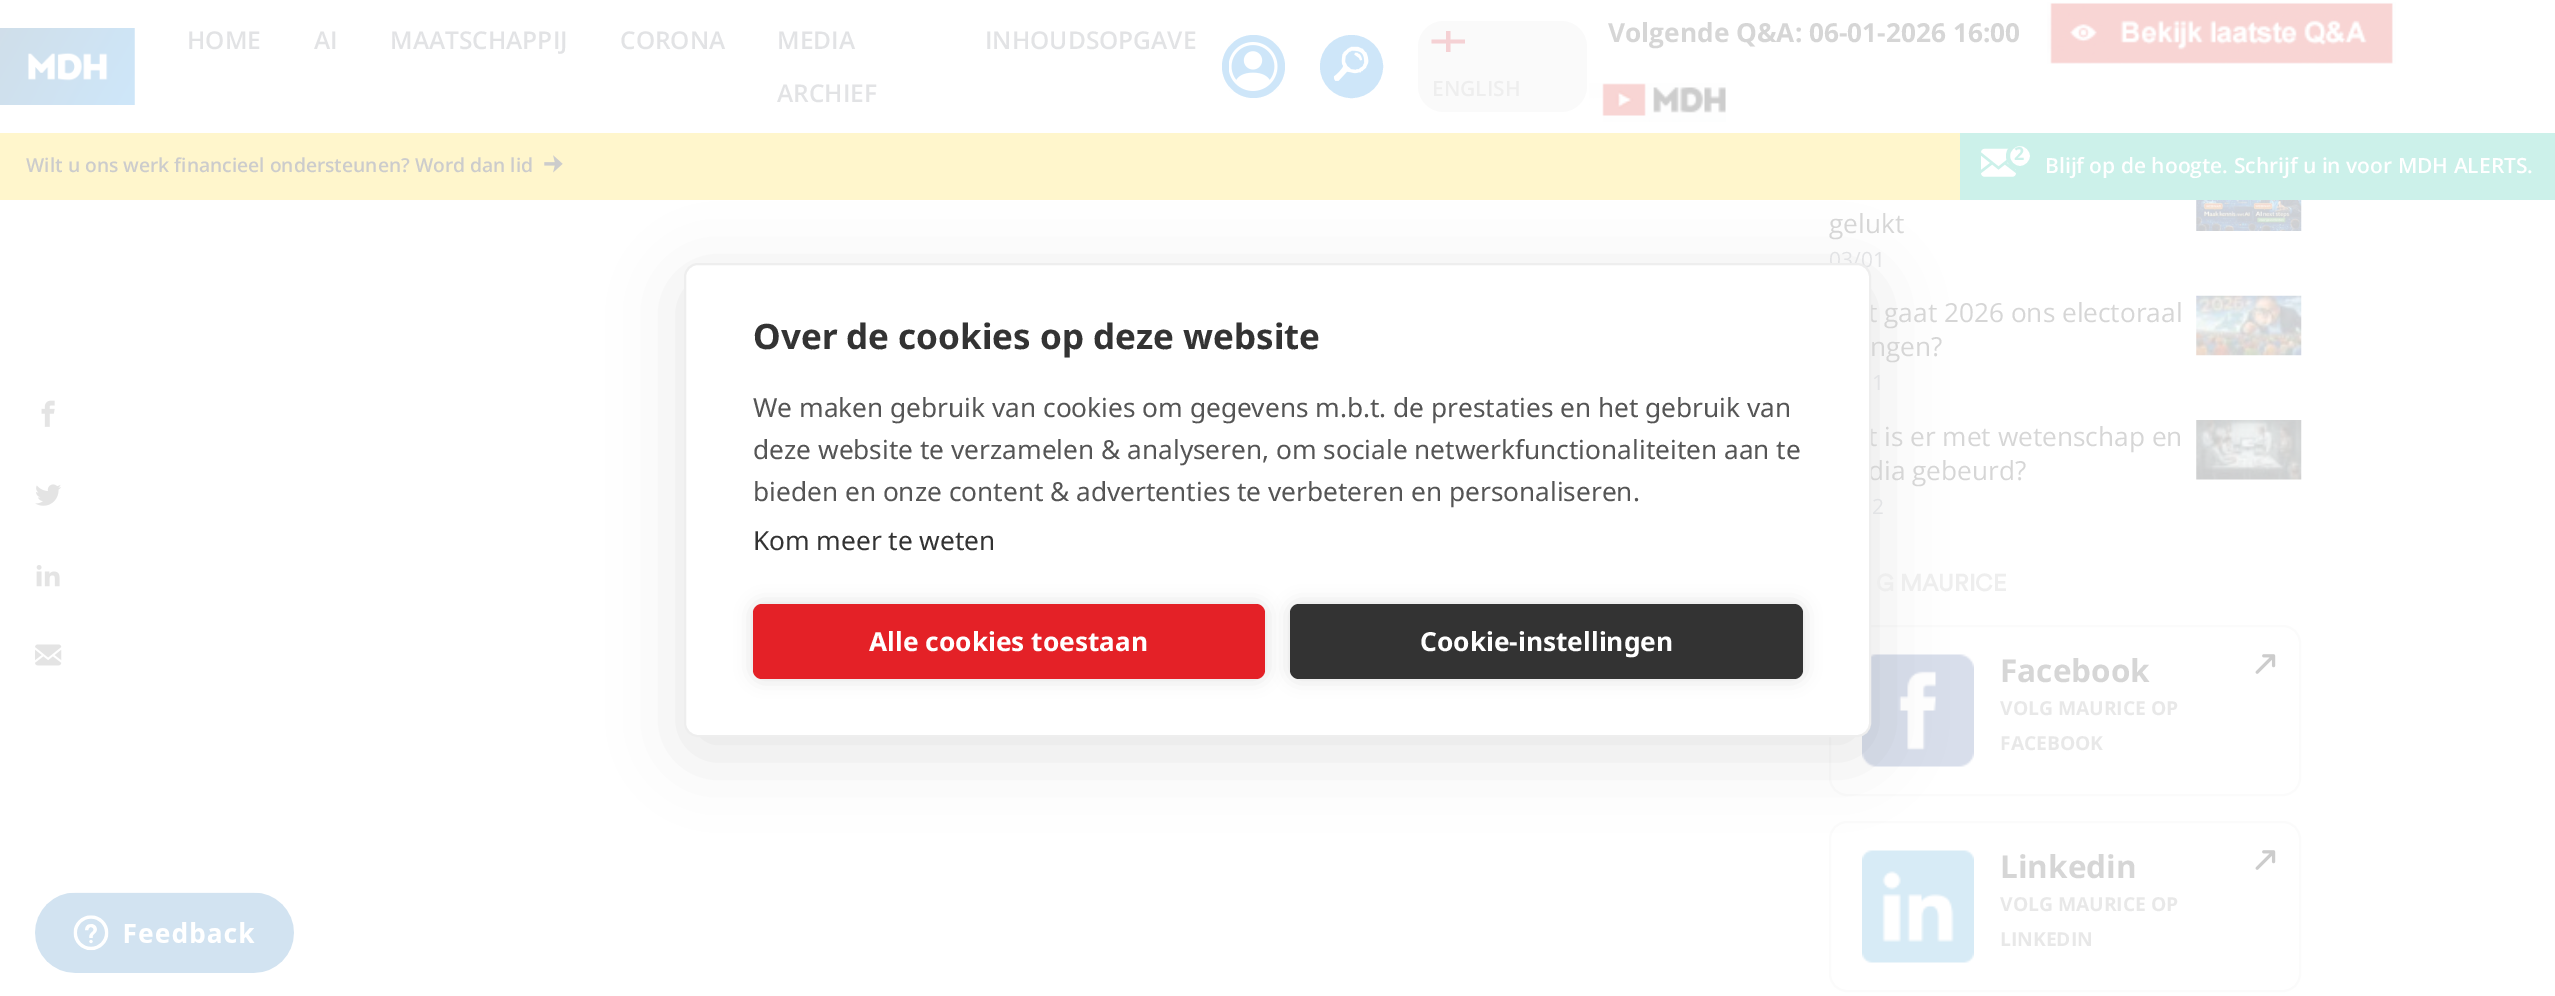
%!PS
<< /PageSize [2555 996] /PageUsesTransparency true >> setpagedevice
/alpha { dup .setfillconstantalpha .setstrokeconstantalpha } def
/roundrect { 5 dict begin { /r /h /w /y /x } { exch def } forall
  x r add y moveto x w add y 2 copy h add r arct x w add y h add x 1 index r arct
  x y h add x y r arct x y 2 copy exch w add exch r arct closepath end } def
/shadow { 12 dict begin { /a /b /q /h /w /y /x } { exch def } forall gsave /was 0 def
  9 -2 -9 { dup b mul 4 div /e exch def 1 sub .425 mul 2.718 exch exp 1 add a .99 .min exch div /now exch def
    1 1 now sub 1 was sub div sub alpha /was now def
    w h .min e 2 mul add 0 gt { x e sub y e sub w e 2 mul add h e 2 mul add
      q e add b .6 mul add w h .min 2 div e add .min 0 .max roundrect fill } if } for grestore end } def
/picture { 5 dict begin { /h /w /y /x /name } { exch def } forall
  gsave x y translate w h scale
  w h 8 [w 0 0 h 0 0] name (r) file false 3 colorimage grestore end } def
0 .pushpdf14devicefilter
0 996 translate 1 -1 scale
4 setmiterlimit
1 setgray
0 0 2555 996 rectfill
(img1.rgb) 0 28 135 77 picture
/OpenSans-SemiBold [24.5 0 0 -24.5 0 0] selectfont
0.886 0.89 0.898 setrgbcolor
187 49 moveto (HOME) show
314 49 moveto (AI) show
390 49 moveto (MAATSCHAPPIJ) show
620 49 moveto (CORONA) show
777 49 moveto (MEDIA) show
777 102 moveto (ARCHIEF) show
985 49 moveto (INHOUDSOPGAVE) show
0.808 0.902 0.976 setrgbcolor
newpath 1253.5 66.5 31.5 0 360 arc closepath fill
(img2.rgb) 1229 42 49 49 picture
newpath 1351.5 66.5 30.5 0 360 arc closepath gsave fill grestore
2 setlinewidth
stroke
(img3.rgb) 1333 46 36 35 picture
0.98 setgray
1418 21 169 91 26 roundrect fill
0.961 0.82 0.831 setrgbcolor
newpath 1465 43.5 moveto 1450.5 43.5 lineto 1450.5 52 lineto 1446 52 lineto 1446 43.5 lineto 1431.5 43.5 lineto 1431.5 39.5 lineto 1446 39.5 lineto 1446 31 lineto 1450.5 31 lineto 1450.5 39.5 lineto 1465 39.5 lineto closepath fill
/OpenSans-SemiBold [21 0 0 -21 0 0] selectfont
0.933 setgray
1432 96 moveto (ENGLISH) show
/OpenSans-Bold [26.25 0 0 -26.25 0 0] selectfont
0.839 setgray
1608 42 moveto (Volgende Q&A: 06-01-2026 16:00) show
(img4.rgb) 2047 2 349 62 picture
(img5.rgb) 1589 83 137 39 picture
1 0.965 0.8 setrgbcolor
0 133 1960 67 rectfill
/OpenSans-SemiBold [19.25 0 0 -19.25 0 0] selectfont
0.8 setgray
26 172 moveto (Wilt u ons werk financieel ondersteunen? Word dan lid) show
(img6.rgb) 544 155 19 18 picture
0.8 0.945 0.918 setrgbcolor
1960 133 595 67 rectfill
(img7.rgb) 1981 148 35 29 picture
1 setgray
newpath 2020 156 12 0 360 arc closepath gsave fill grestore
0.8 0.945 0.918 setrgbcolor
4 setlinewidth
stroke
/OpenSans-Bold [18 0 0 -18 0 0] selectfont
2014 160 moveto (2) show
/OpenSans-SemiBold [21 0 0 -21 0 0] selectfont
1 setgray
2045 173 moveto (Blijf op de hoogte. Schrijf u in voor MDH ALERTS.) show
(img8.rgb) 41 400 14 27 picture
(img9.rgb) 35 484 26 22 picture
(img10.rgb) 36 565 24 22 picture
(img11.rgb) 35 644 27 22 picture
0.984 setgray
2 setlinewidth
1830 626 470 169 17 roundrect stroke
(img15.rgb) 1862 654 112 113 picture
1830 822 470 169 17 roundrect stroke
(img17.rgb) 1862 850 112 113 picture
0 setgray
684 280 1187 474 14 35 0.1 shadow
/OpenSans-Regular [21 0 0 -21 0 0] selectfont
0.886 0.89 0.898 setrgbcolor
1829 267 moveto (03/01) show
/OpenSans-Regular [26.25 0 0 -26.25 0 0] selectfont
0.839 setgray
1868 322 moveto (t gaat 2026 ons electoraal) show
1868 446 moveto (t is er met wetenschap en) show
1868 480 moveto (dia gebeurd?) show
1 setgray
685 264 1185 472 13 roundrect gsave fill grestore
0.933 setgray
stroke
/NotoSans-Bold [35 0 0 -35 0 0] selectfont
0.2 setgray
753 349 moveto (Over de cookies op deze website) show
/NotoSans-Regular [26.25 0 0 -26.25 0 0] selectfont
0.333 setgray
753 417 moveto (We maken gebruik van cookies om gegevens m.b.t. de prestaties en het gebruik van) show
753 459 moveto (deze website te verzamelen & analyseren, om sociale netwerkfunctionaliteiten aan te) show
753 501 moveto (bieden en onze content & advertenties te verbeteren en personaliseren.) show
0.2 setgray
753 550 moveto (Kom meer te weten) show
0 setgray
753 604 512 75 9 9 0.12 shadow
0.894 0.129 0.153 setrgbcolor
753 604 512 75 9 roundrect fill
/NotoSans-Bold [26.25 0 0 -26.25 0 0] selectfont
1 setgray
869 651 moveto (Alle cookies toestaan) show
0 setgray
1290 604 513 75 9 9 0.12 shadow
0.2 setgray
1290 604 513 75 9 roundrect fill
1 setgray
1420 651 moveto (Cookie-instellingen) show
/OpenSans-Regular [26.25 0 0 -26.25 0 0] selectfont
0.839 setgray
1829 233 moveto (gelukt) show
(img12.rgb) 2196 200 106 31 picture
1870 356 moveto (ngen?) show
/OpenSans-Regular [21 0 0 -21 0 0] selectfont
0.886 0.89 0.898 setrgbcolor
1872 390 moveto (1) show
(img13.rgb) 2196 295 106 61 picture
1872 514 moveto (2) show
(img14.rgb) 2196 420 106 60 picture
/Circular-Bold [23.5 0 0 -23.5 0 0] selectfont
0.933 setgray
1876 591 moveto (G MAURICE) show
/OpenSans-Bold [31.5 0 0 -31.5 0 0] selectfont
0.839 setgray
2000 682 moveto (Facebook) show
(img16.rgb) 2255 654 21 20 picture
/OpenSans-Bold [19.25 0 0 -19.25 0 0] selectfont
0.91 setgray
2000 715 moveto (VOLG MAURICE OP) show
2000 750 moveto (FACEBOOK) show
/OpenSans-Bold [31.5 0 0 -31.5 0 0] selectfont
0.839 setgray
2000 878 moveto (Linkedin) show
(img16.rgb) 2255 850 21 20 picture
/OpenSans-Bold [19.25 0 0 -19.25 0 0] selectfont
0.91 setgray
2000 911 moveto (VOLG MAURICE OP) show
2000 946 moveto (LINKEDIN) show
(img18.rgb) 35 892 259 81 picture
.poppdf14devicefilter showpage
